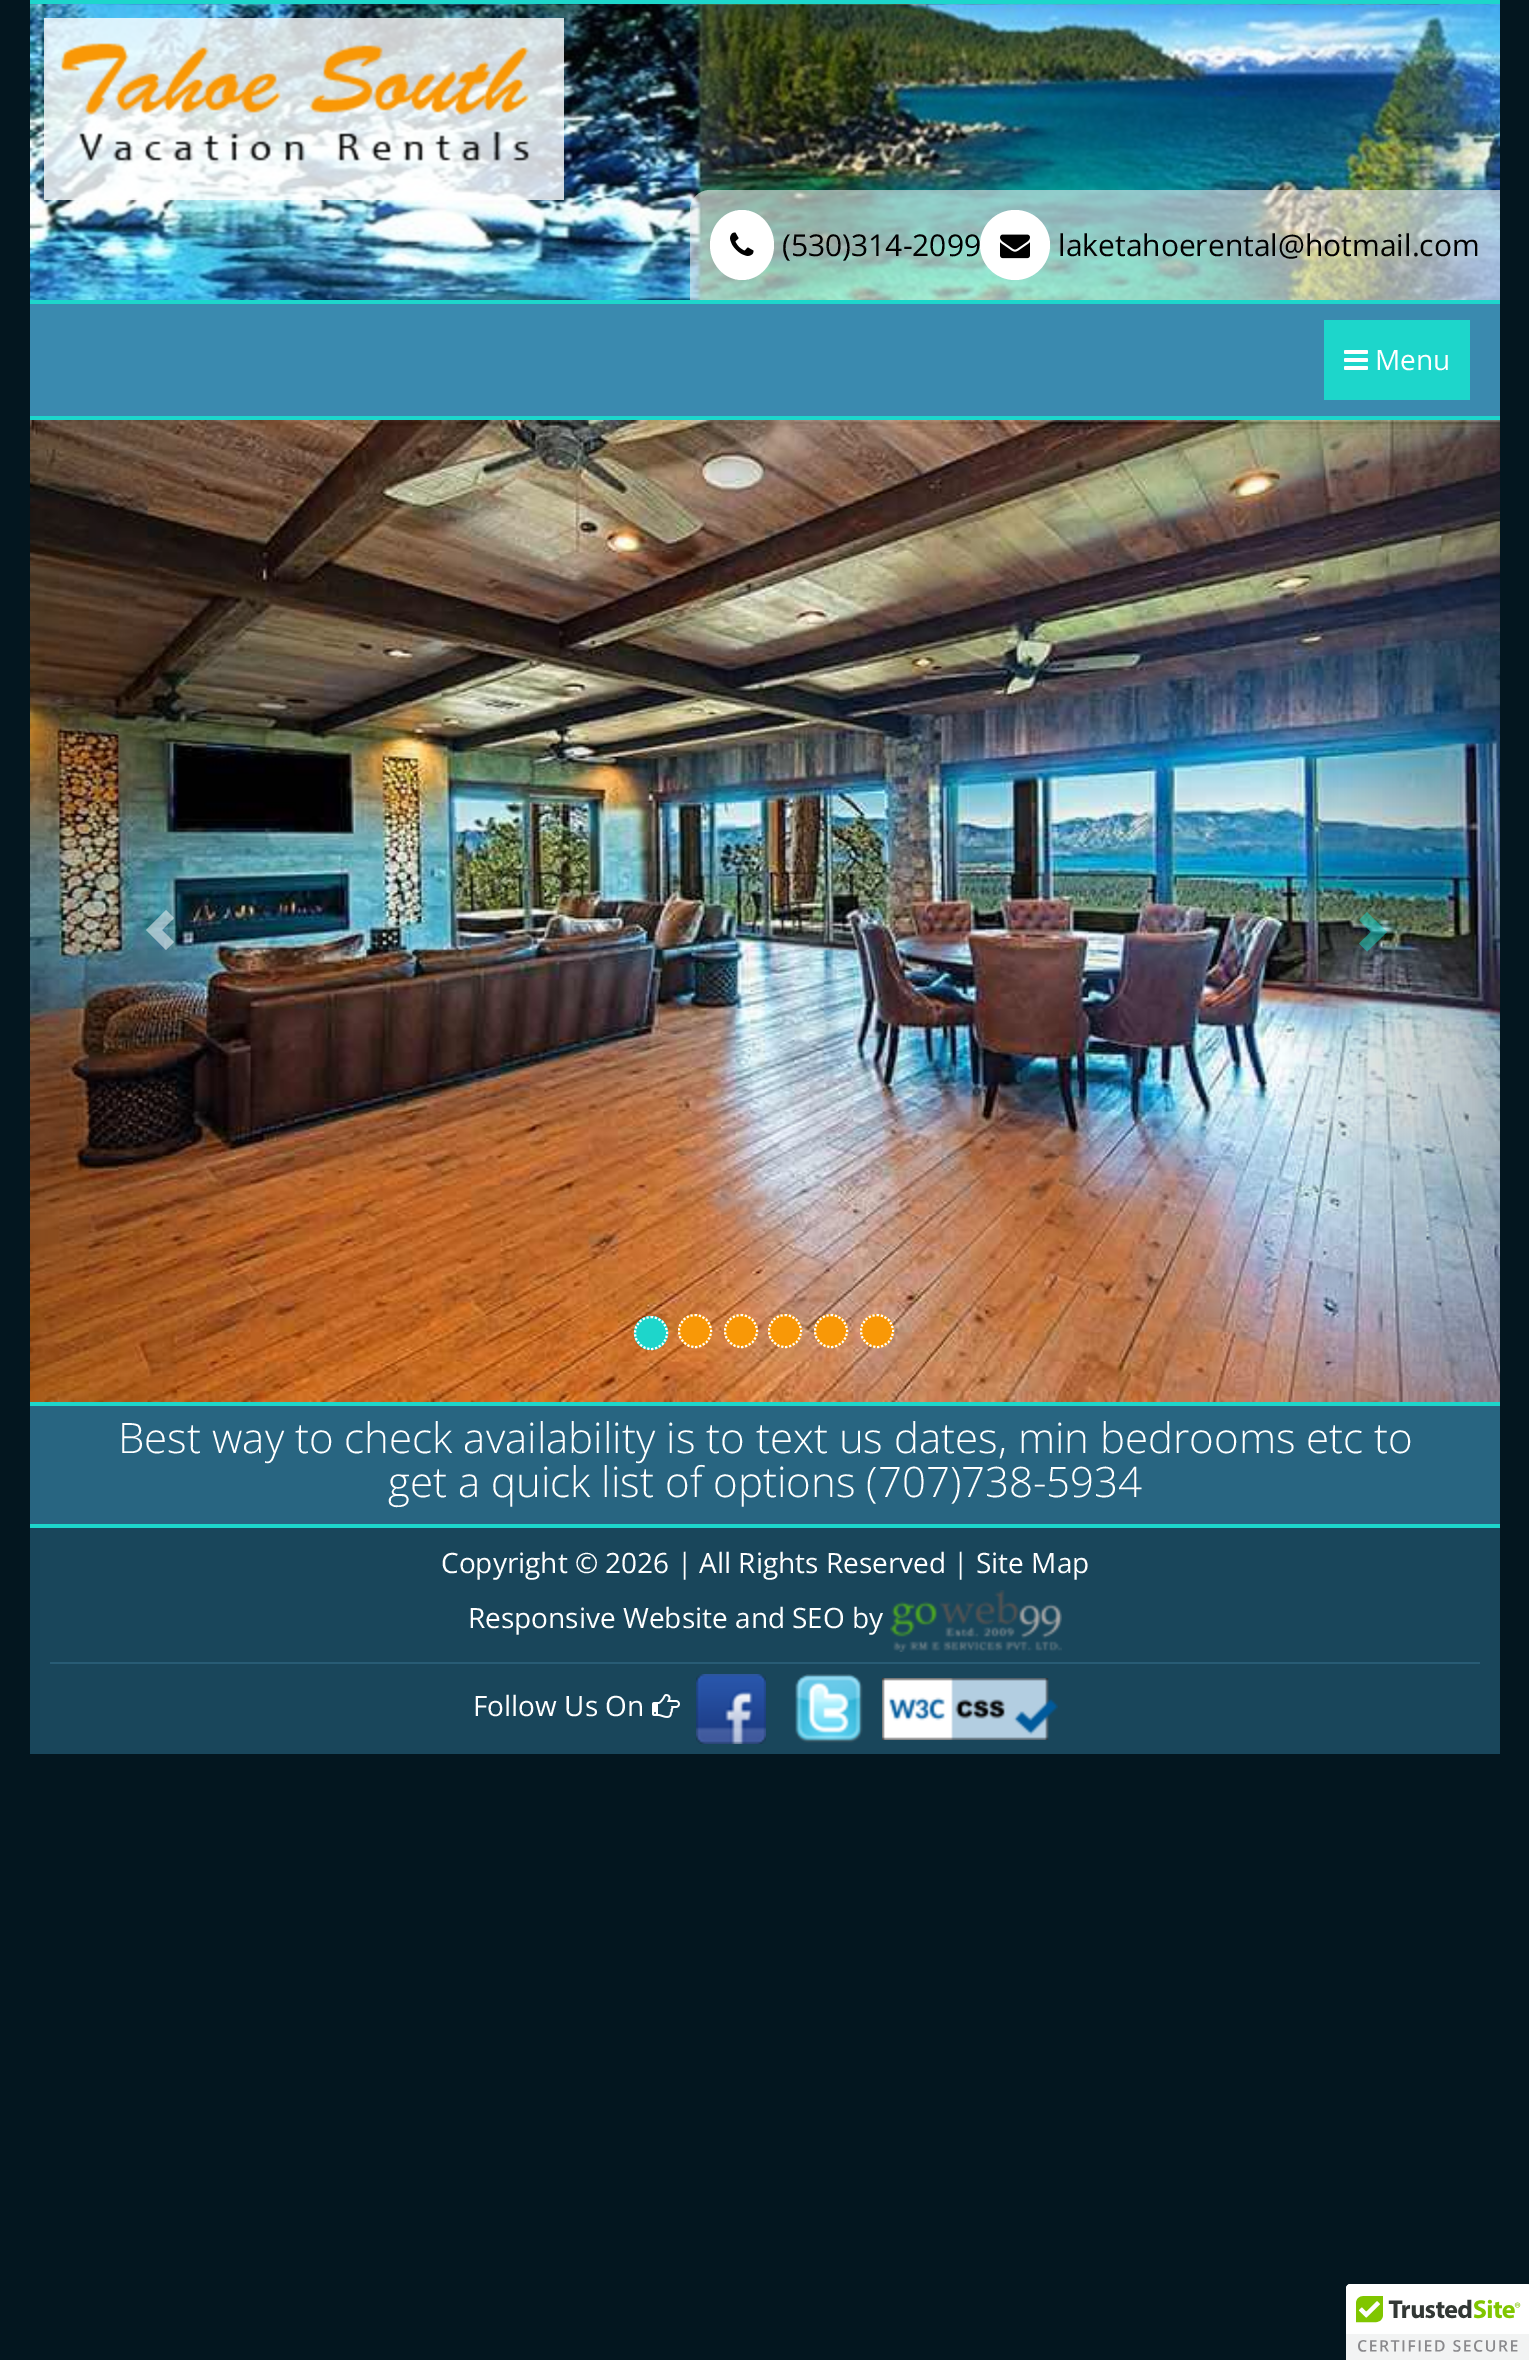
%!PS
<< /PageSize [1529 2360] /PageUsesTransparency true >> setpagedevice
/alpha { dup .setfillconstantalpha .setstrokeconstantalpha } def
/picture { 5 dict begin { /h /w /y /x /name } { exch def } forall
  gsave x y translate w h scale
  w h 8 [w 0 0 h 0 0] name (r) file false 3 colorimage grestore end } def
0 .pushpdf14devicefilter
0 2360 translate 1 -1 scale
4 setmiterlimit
0.012 0.086 0.122 setrgbcolor
0 0 1529 2360 rectfill
(img1.rgb) 30 4 1470 296 picture
0.114 0.839 0.796 setrgbcolor
30 0 1470 4 rectfill
0.8 alpha
1 setgray
44 18 520 182 rectfill
1 alpha
(img2.rgb) 61 43 469 118 picture
0.6 alpha
0.937 setgray
newpath 710 190 moveto 1500 190 lineto 1500 300 lineto 690 300 lineto 690 210 lineto 690 199 699 190 710 190 curveto closepath fill
1 alpha
1 setgray
newpath 742 210 moveto 759.5 210 774 225.5 774 245 curveto 774 264.5 759.5 280 742 280 curveto 724.5 280 710 264.5 710 245 curveto 710 225.5 724.5 210 742 210 curveto closepath fill
(img3.rgb) 730 232 24 24 picture
/OpenSans-Regular [30 0 0 -30 0 0] selectfont
0 setgray
782 256 moveto (\(530\)314-2099) show
1 setgray
newpath 1015 245 35 0 360 arc closepath fill
(img4.rgb) 1000 234 30 25 picture
0 setgray
1058 256 moveto (laketahoerental@hotmail.com) show
0.227 0.541 0.686 setrgbcolor
30 304 1470 112 rectfill
0.114 0.839 0.796 setrgbcolor
30 300 1470 4 rectfill
30 416 1470 4 rectfill
1324 320 146 80 rectfill
(img5.rgb) 1344 350 24 20 picture
/OpenSans-Regular [28 0 0 -28 0 0] selectfont
1 setgray
1375 370 moveto (Menu) show
(img6.rgb) 30 420 1470 982 picture
0.5 alpha
newpath 146 930 moveto 166 950 lineto 174 942 lineto 162 930 lineto 174 918 lineto 166 910 lineto closepath fill
0.114 0.839 0.796 setrgbcolor
newpath 1359 943.5 moveto 1371 932 lineto 1359 920 lineto 1367 912 lineto 1387 932 lineto 1367 951.5 lineto closepath fill
1 alpha
newpath 651 1333 17 0 360 arc closepath fill
1 setgray
2 setlinewidth
[2 2] 0 setdash
newpath 651 1317 moveto 660 1317 667 1324 667 1333 curveto 667 1342 660 1349 651 1349 curveto 642 1349 635 1342 635 1333 curveto 635 1324 642 1317 651 1317 curveto closepath stroke
0.976 0.596 0.024 setrgbcolor
newpath 695 1331 17 0 360 arc closepath fill
1 setgray
newpath 695 1315 moveto 704 1315 711 1322 711 1331 curveto 711 1340 704 1347 695 1347 curveto 686 1347 679 1340 679 1331 curveto 679 1322 686 1315 695 1315 curveto closepath stroke
0.976 0.596 0.024 setrgbcolor
newpath 741 1331 17 0 360 arc closepath fill
1 setgray
newpath 741 1315 moveto 750 1315 757 1322 757 1331 curveto 757 1340 750 1347 741 1347 curveto 732 1347 725 1340 725 1331 curveto 725 1322 732 1315 741 1315 curveto closepath stroke
0.976 0.596 0.024 setrgbcolor
newpath 785 1331 17 0 360 arc closepath fill
1 setgray
newpath 785 1315 moveto 794 1315 801 1322 801 1331 curveto 801 1340 794 1347 785 1347 curveto 776 1347 769 1340 769 1331 curveto 769 1322 776 1315 785 1315 curveto closepath stroke
0.976 0.596 0.024 setrgbcolor
newpath 831 1331 17 0 360 arc closepath fill
1 setgray
newpath 831 1315 moveto 840 1315 847 1322 847 1331 curveto 847 1340 840 1347 831 1347 curveto 822 1347 815 1340 815 1331 curveto 815 1322 822 1315 831 1315 curveto closepath stroke
0.976 0.596 0.024 setrgbcolor
newpath 877 1331 17 0 360 arc closepath fill
1 setgray
newpath 877 1315 moveto 886 1315 893 1322 893 1331 curveto 893 1340 886 1347 877 1347 curveto 868 1347 861 1340 861 1331 curveto 861 1322 868 1315 877 1315 curveto closepath stroke
0.157 0.396 0.506 setrgbcolor
30 1406 1470 118 rectfill
0.114 0.839 0.796 setrgbcolor
30 1402 1470 4 rectfill
/OpenSans-Light [42 0 0 -42 0 0] selectfont
1 setgray
118 1453 moveto (Best way to check availability is to text us dates, min bedrooms etc to) show
388 1497 moveto (get a quick list of options \(707\)738-5934) show
0.098 0.275 0.357 setrgbcolor
30 1528 1470 226 rectfill
0.114 0.839 0.796 setrgbcolor
30 1524 1470 4 rectfill
/OpenSans-Regular [28 0 0 -28 0 0] selectfont
1 setgray
441 1573 moveto (Copyright © 2026 | All Rights Reserved | Site Map) show
468 1628 moveto (Responsive Website and SEO by) show
(img7.rgb) 890 1590 172 62 picture
0.157 0.361 0.459 setrgbcolor
50 1662 1430 2 rectfill
1 setgray
473 1716 moveto (Follow Us On) show
(img8.rgb) 652 1694 28 24 picture
(img9.rgb) 696 1674 70 70 picture
(img10.rgb) 795 1674 68 69 picture
(img11.rgb) 882 1678 176 62 picture
newpath 1350 2284 moveto 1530 2284 lineto 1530 2360 lineto 1346 2360 lineto 1346 2288 lineto 1346 2286 1348 2284 1350 2284 curveto closepath fill
(img12.rgb) 1346 2284 183 76 picture
.poppdf14devicefilter showpage
